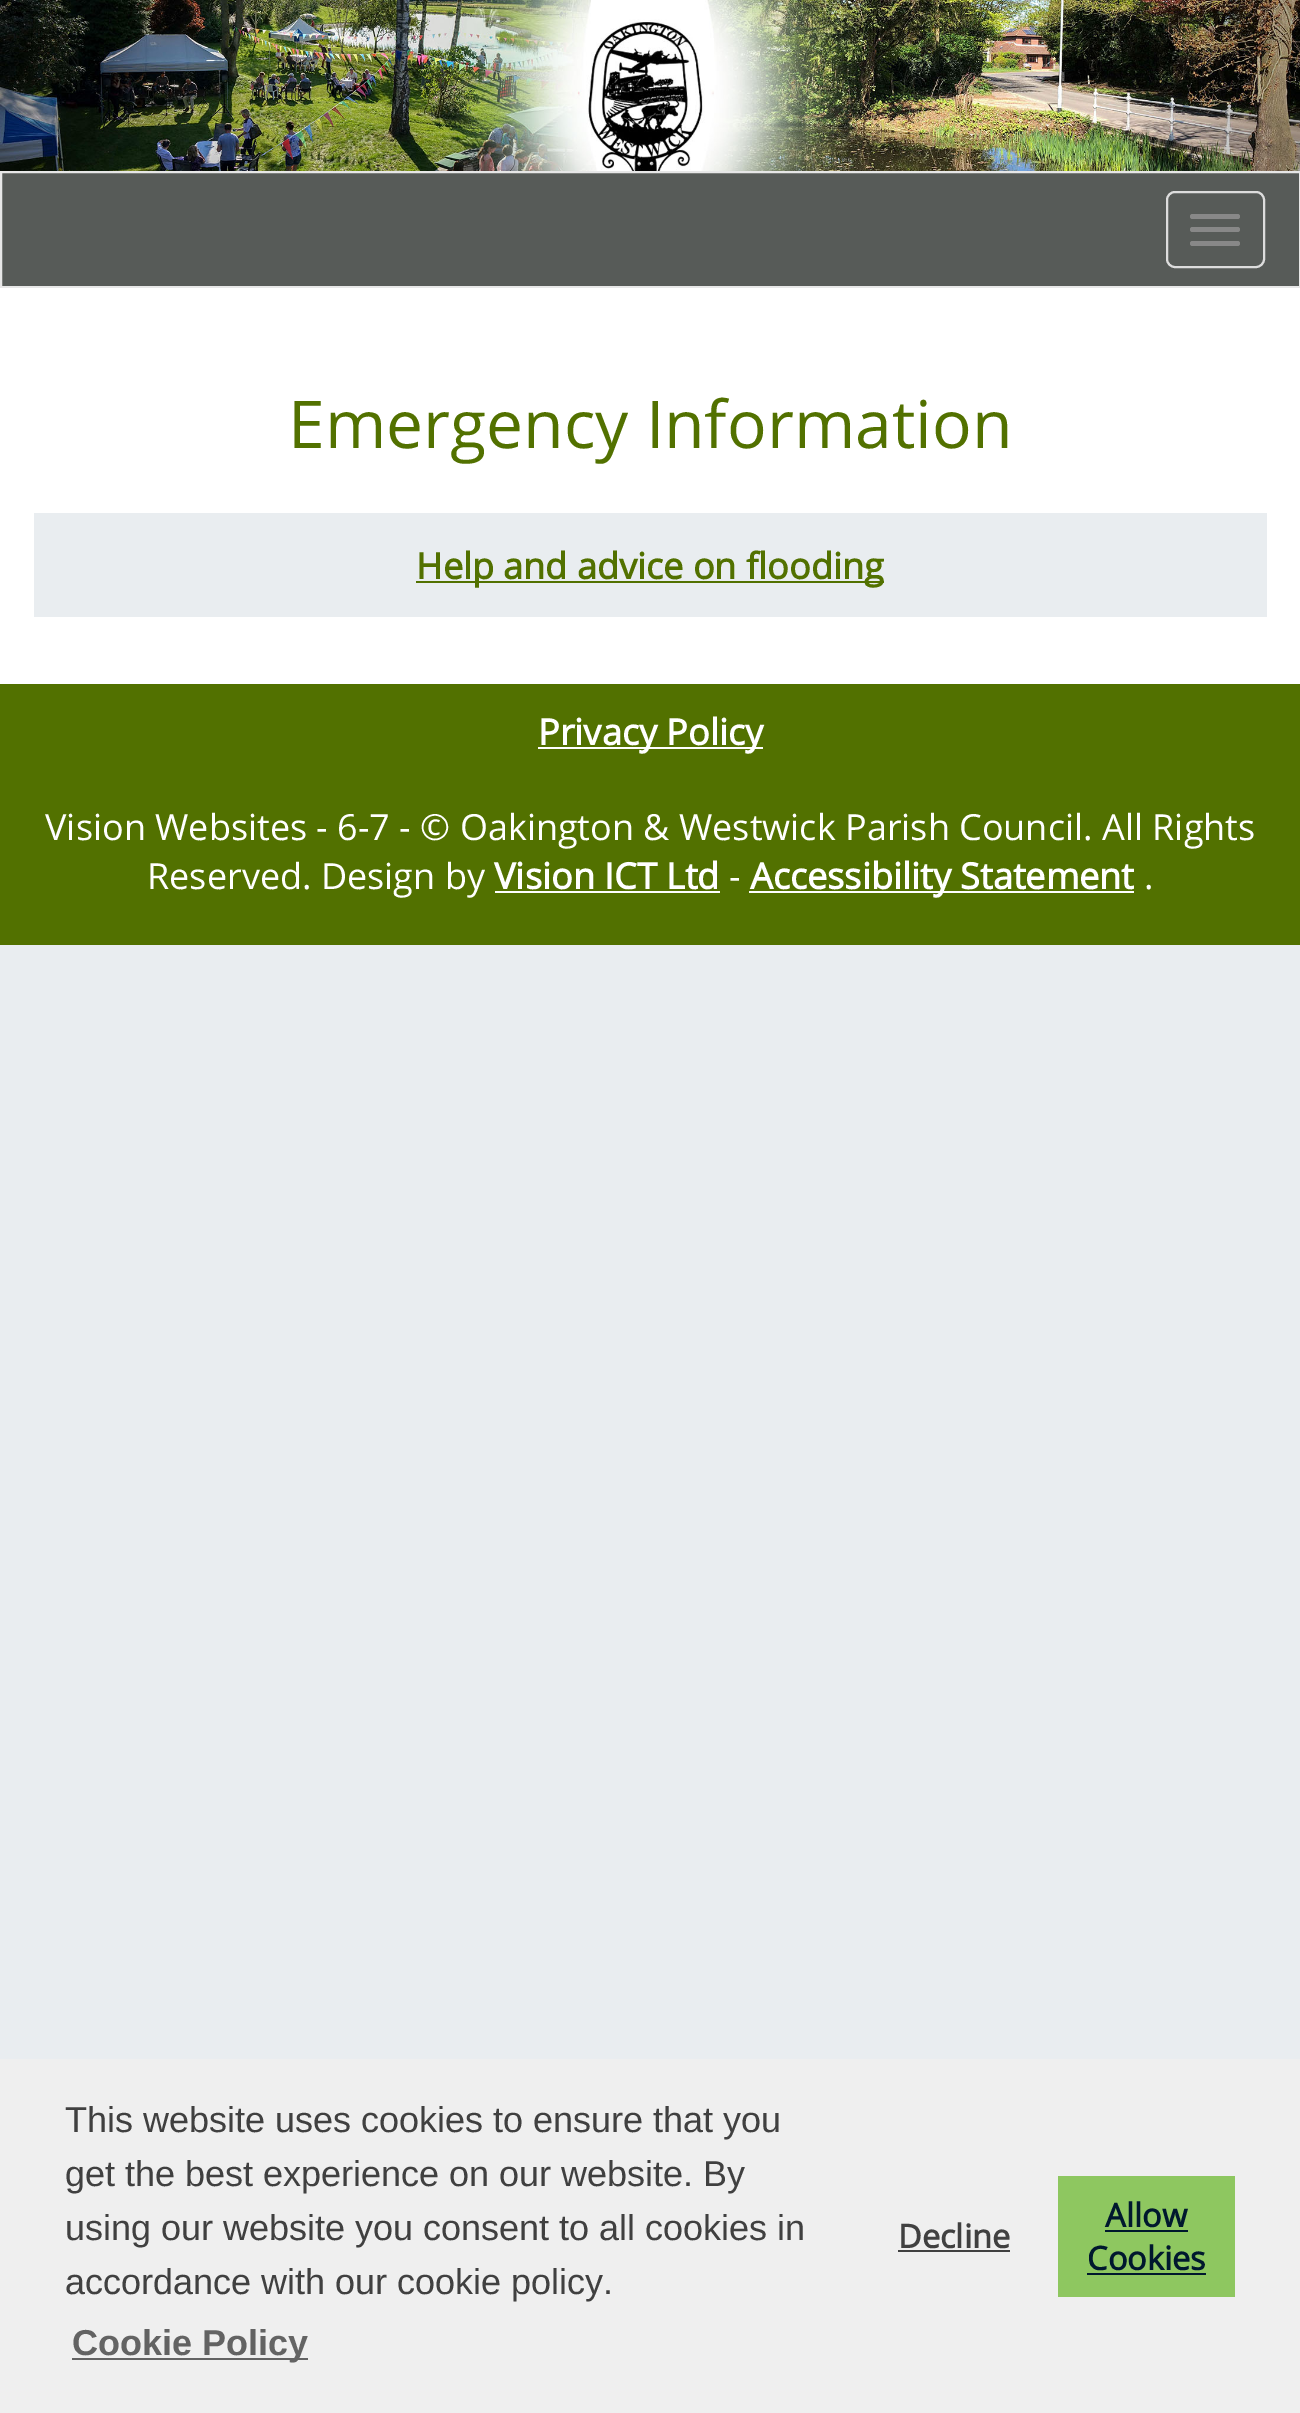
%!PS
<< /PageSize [1300 2413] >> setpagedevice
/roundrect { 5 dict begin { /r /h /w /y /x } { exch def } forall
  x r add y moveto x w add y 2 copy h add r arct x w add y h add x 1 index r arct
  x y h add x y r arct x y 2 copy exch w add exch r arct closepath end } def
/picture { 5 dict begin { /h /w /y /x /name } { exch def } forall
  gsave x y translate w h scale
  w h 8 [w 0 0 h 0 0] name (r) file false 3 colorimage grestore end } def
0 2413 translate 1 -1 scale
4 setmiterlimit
0.914 0.929 0.941 setrgbcolor
0 0 1300 2413 rectfill
(img1.rgb) 0 0 1300 171 picture
0.341 0.357 0.345 setrgbcolor
newpath 1 172 moveto 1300 172 lineto 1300 287 lineto 1 287 lineto closepath gsave fill grestore
0.906 setgray
2 setlinewidth
stroke
0.867 setgray
1167 192 97 75 8 roundrect stroke
0.533 setgray
1190 214 50 5 2.5 roundrect fill
1190 227 50 5 2.5 roundrect fill
1190 241 50 5 2.5 roundrect fill
1 setgray
0 288 1300 396 rectfill
/OpenSans-Regular [66 0 0 -66 0 0] selectfont
0.322 0.443 0 setrgbcolor
288 448 moveto (Emergency Information) show
0.914 0.929 0.941 setrgbcolor
34 513 1233 104 rectfill
0.322 0.443 0 setrgbcolor
416 581 468 2 rectfill
/OpenSans-Bold [36 0 0 -36 0 0] selectfont
416 579 moveto (Help and advice on flooding) show
0 684 1300 261 rectfill
1 setgray
538 747 225 2 rectfill
538 745 moveto (Privacy Policy) show
/OpenSans-Regular [36 0 0 -36 0 0] selectfont
45 840 moveto (Vision Websites - 6-7 - © Oakington & Westwick Parish Council. All Rights) show
147 889 moveto (Reserved. Design by) show
/OpenSans-Bold [36 0 0 -36 0 0] selectfont
494 889 moveto (Vision ICT Ltd) show
495 891 225 2 rectfill
/OpenSans-Regular [36 0 0 -36 0 0] selectfont
729 889 moveto (-) show
749 891 385 2 rectfill
/OpenSans-Bold [36 0 0 -36 0 0] selectfont
750 889 moveto (Accessibility Statement) show
/OpenSans-Regular [36 0 0 -36 0 0] selectfont
1144 889 moveto (.) show
0.937 setgray
0 2059 1300 354 rectfill
/LiberationSans-Regular [36 0 0 -36 0 0] selectfont
0.251 setgray
65 2132 moveto (This website uses cookies to ensure that you) show
65 2186 moveto (get the best experience on our website. By) show
65 2240 moveto (using our website you consent to all cookies in) show
65 2294 moveto (accordance with our cookie policy.) show
0.388 setgray
72 2358 236 2 rectfill
/LiberationSans-Bold [36 0 0 -36 0 0] selectfont
72 2355 moveto (Cookie Policy) show
/OpenSans-Bold [32.5 0 0 -32.5 0 0] selectfont
0.251 setgray
898 2248 moveto (Decline) show
898 2250 112 2 rectfill
0.557 0.78 0.376 setrgbcolor
1058 2176 177 121 rectfill
0 0.094 0.18 setrgbcolor
1105 2227 moveto (Allow) show
1105 2230 83 2 rectfill
1087 2270 moveto (Cookies) show
1087 2273 119 2 rectfill
showpage
